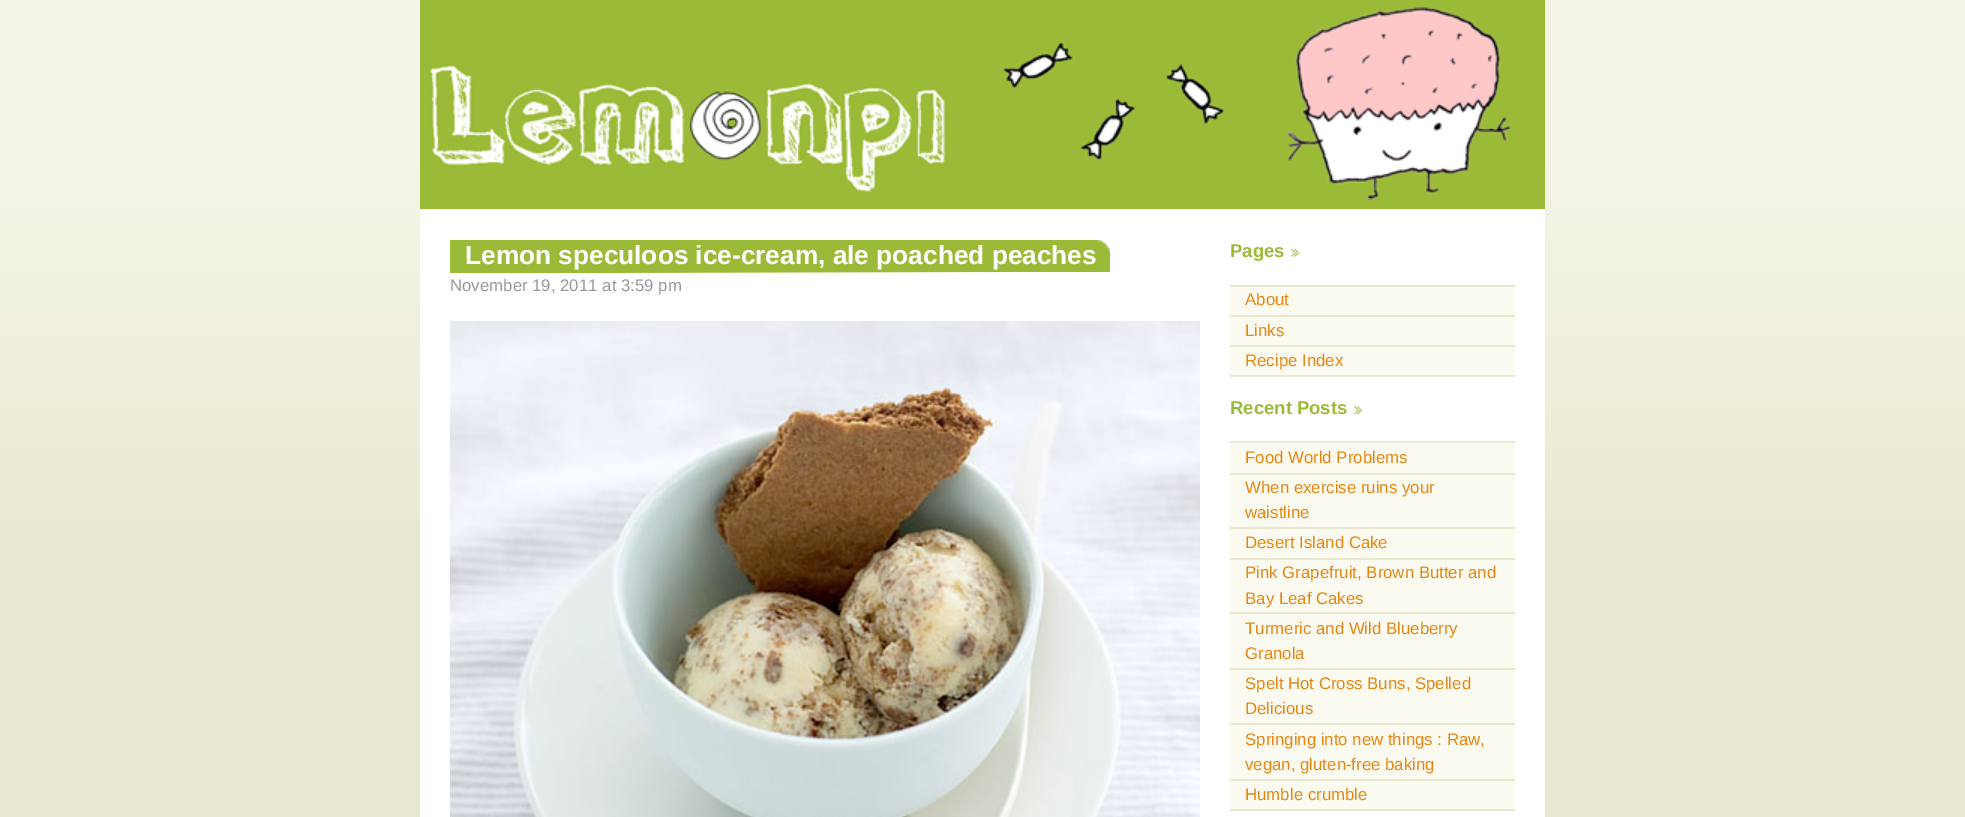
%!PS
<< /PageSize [1965 817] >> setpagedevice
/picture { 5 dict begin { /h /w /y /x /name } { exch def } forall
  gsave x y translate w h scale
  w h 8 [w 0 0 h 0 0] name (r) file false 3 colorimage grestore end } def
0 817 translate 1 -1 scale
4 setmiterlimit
0.91 0.91 0.808 setrgbcolor
0 0 1965 817 rectfill
(img1.rgb) 0 0 1965 520 picture
1 setgray
420 209 1125 608 rectfill
0.608 0.733 0.22 setrgbcolor
420 0 1125 209 rectfill
(img2.rgb) 429 7 1082 194 picture
450 240 660 32 rectfill
(img3.rgb) 1096 240 14 13 picture
/LiberationSans-Bold [26.25 0 0 -26.25 0 0] selectfont
1 setgray
465 264 moveto (Lemon speculoos ice-cream, ale poached peaches) show
(img4.rgb) 450 272 551 1 picture
/LiberationSans-Regular [16.8 0 0 -16.8 0 0] selectfont
0.6 setgray
450 291 moveto (November 19, 2011 at 3:59 pm) show
(img5.rgb) 450 321 750 496 picture
/LiberationSans-Bold [18.5 0 0 -18.5 0 0] selectfont
0.608 0.733 0.22 setrgbcolor
1230 257 moveto (Pages) show
(img6.rgb) 1291 248 8 9 picture
0.98 0.98 0.941 setrgbcolor
1230 287 285 88 rectfill
0.91 0.906 0.816 setrgbcolor
1230 285 285 2 rectfill
1230 315 285 2 rectfill
/LiberationSans-Regular [16.8 0 0 -16.8 0 0] selectfont
0.898 0.529 0.071 setrgbcolor
1245 305 moveto (About) show
0.91 0.906 0.816 setrgbcolor
1230 345 285 2 rectfill
0.898 0.529 0.071 setrgbcolor
1245 336 moveto (Links) show
0.91 0.906 0.816 setrgbcolor
1230 375 285 2 rectfill
0.898 0.529 0.071 setrgbcolor
1245 366 moveto (Recipe Index) show
/LiberationSans-Bold [18.5 0 0 -18.5 0 0] selectfont
0.608 0.733 0.22 setrgbcolor
1230 414 moveto (Recent Posts) show
(img7.rgb) 1354 406 8 8 picture
0.98 0.98 0.941 setrgbcolor
1230 443 285 366 rectfill
0.91 0.906 0.816 setrgbcolor
1230 441 285 2 rectfill
1230 473 285 2 rectfill
/LiberationSans-Regular [16.8 0 0 -16.8 0 0] selectfont
0.898 0.529 0.071 setrgbcolor
1245 463 moveto (Food World Problems) show
0.91 0.906 0.816 setrgbcolor
1230 527 285 2 rectfill
0.898 0.529 0.071 setrgbcolor
1245 493 moveto (When exercise ruins your) show
1245 518 moveto (waistline) show
0.91 0.906 0.816 setrgbcolor
1230 558 285 2 rectfill
0.898 0.529 0.071 setrgbcolor
1245 548 moveto (Desert Island Cake) show
0.91 0.906 0.816 setrgbcolor
1230 612 285 2 rectfill
0.898 0.529 0.071 setrgbcolor
1245 578 moveto (Pink Grapefruit, Brown Butter and) show
1245 604 moveto (Bay Leaf Cakes) show
0.91 0.906 0.816 setrgbcolor
1230 668 285 2 rectfill
0.898 0.529 0.071 setrgbcolor
1245 634 moveto (Turmeric and Wild Blueberry) show
1245 659 moveto (Granola) show
0.91 0.906 0.816 setrgbcolor
1230 723 285 2 rectfill
0.898 0.529 0.071 setrgbcolor
1245 689 moveto (Spelt Hot Cross Buns, Spelled) show
1245 714 moveto (Delicious) show
0.91 0.906 0.816 setrgbcolor
1230 779 285 2 rectfill
0.898 0.529 0.071 setrgbcolor
1245 745 moveto (Springing into new things : Raw,) show
1245 770 moveto (vegan, gluten-free baking) show
0.91 0.906 0.816 setrgbcolor
1230 809 285 2 rectfill
0.898 0.529 0.071 setrgbcolor
1245 800 moveto (Humble crumble) show
showpage
